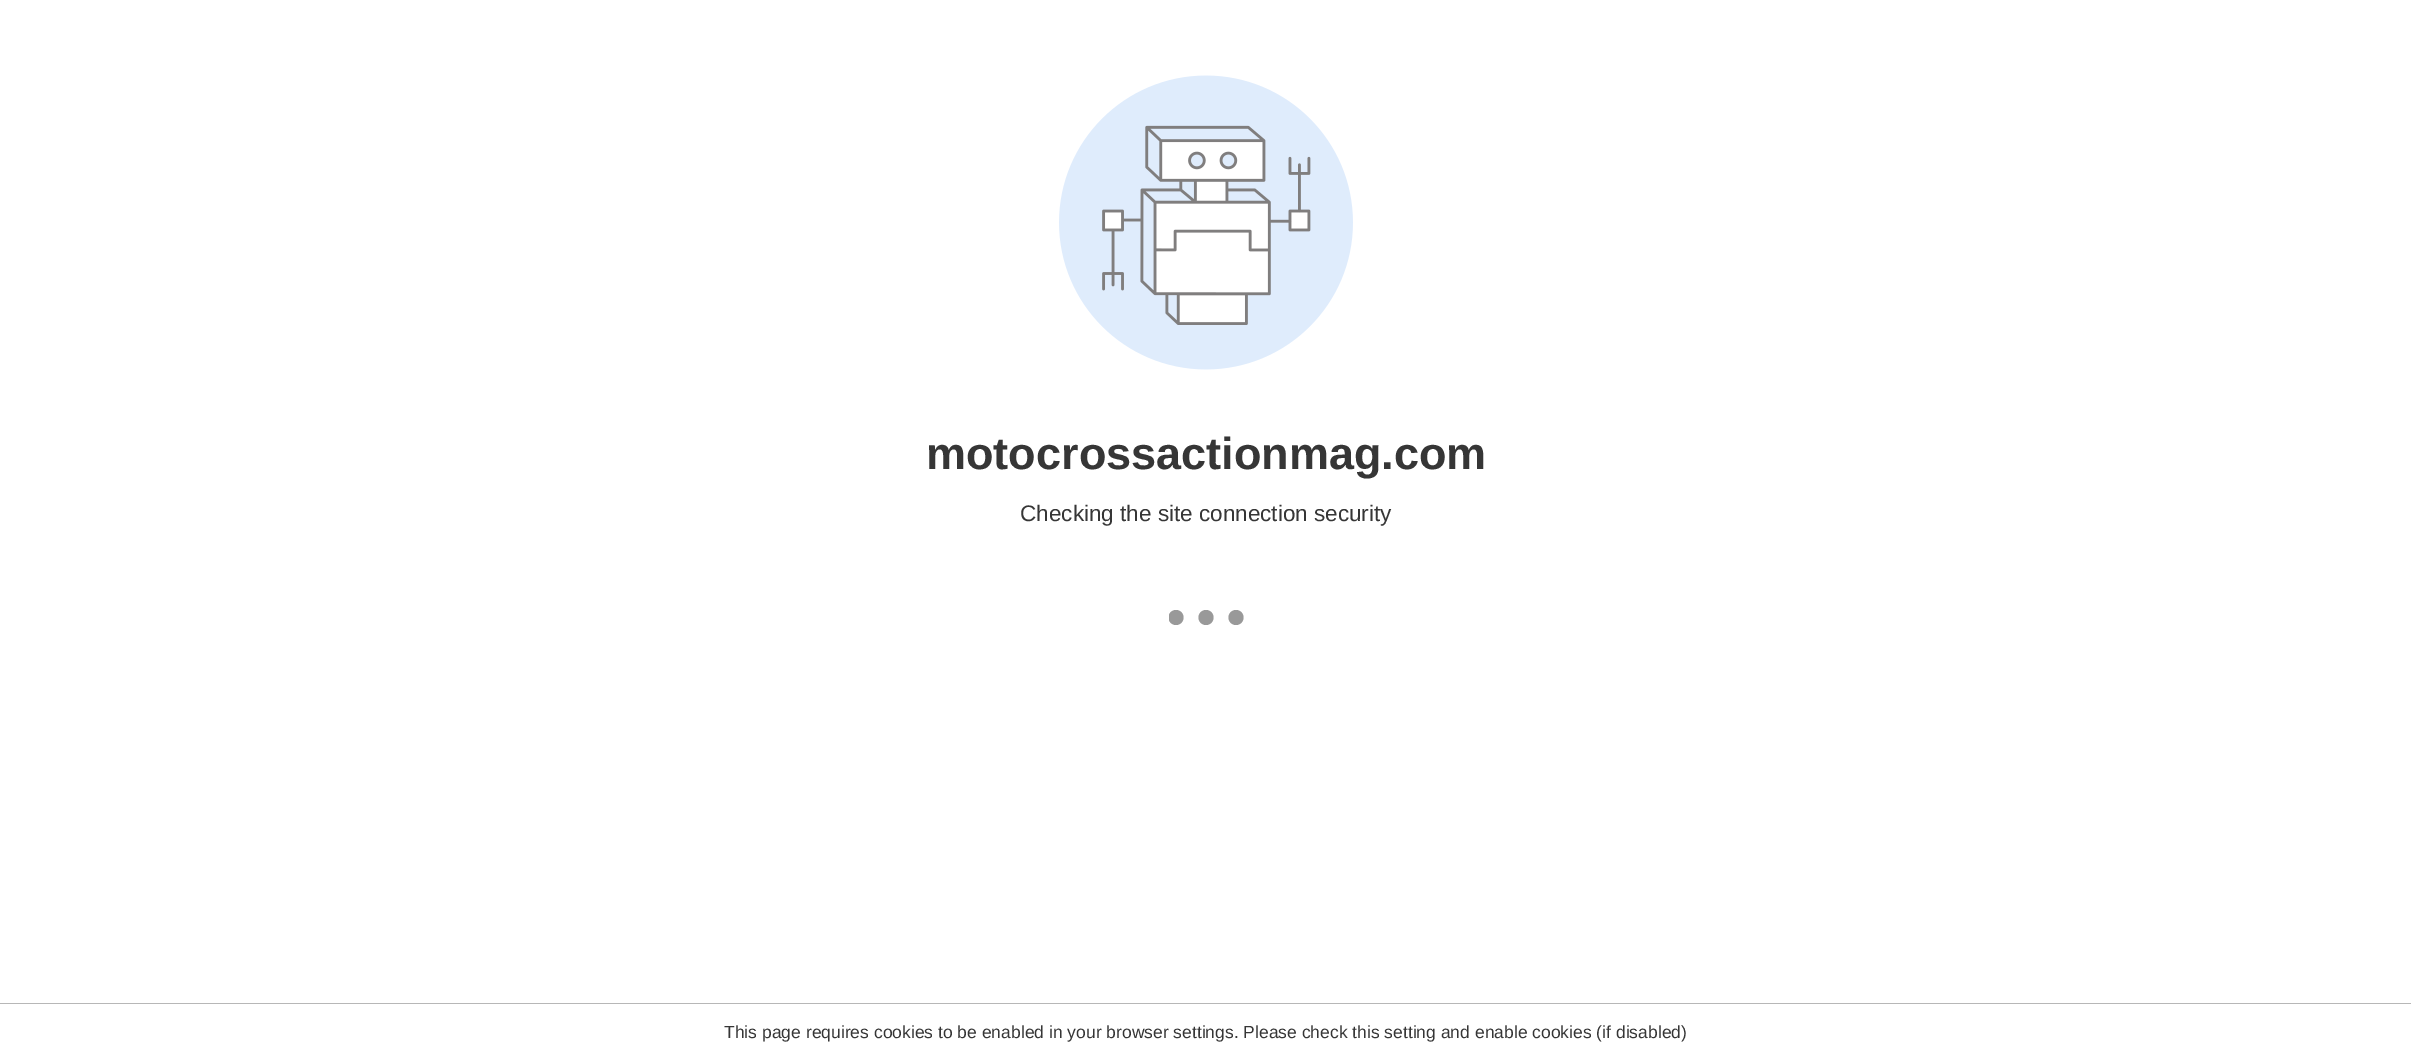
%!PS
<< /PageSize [2411 1058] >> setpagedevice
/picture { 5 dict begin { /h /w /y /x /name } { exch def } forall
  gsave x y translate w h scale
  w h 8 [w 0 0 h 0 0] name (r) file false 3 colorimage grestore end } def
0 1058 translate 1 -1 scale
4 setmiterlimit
1 setgray
0 0 2411 1058 rectfill
(img1.rgb) 1059 75 294 295 picture
/LiberationSans-Bold [45 0 0 -45 0 0] selectfont
0.212 setgray
926 469 moveto (motocrossactionmag.com) show
/LiberationSans-Regular [22.5 0 0 -22.5 0 0] selectfont
1020 521 moveto (Checking the site connection security) show
gsave
1169 555 125 125 rectclip
0.6 setgray
newpath 1176 617.5 7.5 0 360 arc closepath fill
grestore
0.6 setgray
newpath 1206 617.5 7.5 0 360 arc closepath fill
newpath 1236 617.5 7.5 0 360 arc closepath fill
0.718 setgray
0 1003 2411 1 rectfill
/LiberationSans-Regular [17.5 0 0 -17.5 0 0] selectfont
0.212 setgray
724 1038 moveto (This page requires cookies to be enabled in your browser settings. Please check this setting and enable cookies \(if disabled\)) show
showpage
